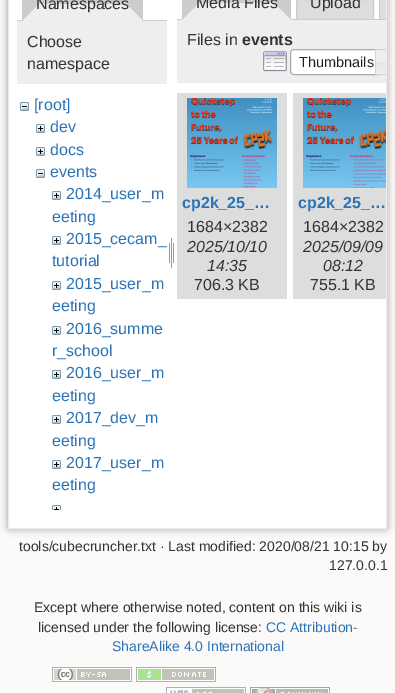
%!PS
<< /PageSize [395 693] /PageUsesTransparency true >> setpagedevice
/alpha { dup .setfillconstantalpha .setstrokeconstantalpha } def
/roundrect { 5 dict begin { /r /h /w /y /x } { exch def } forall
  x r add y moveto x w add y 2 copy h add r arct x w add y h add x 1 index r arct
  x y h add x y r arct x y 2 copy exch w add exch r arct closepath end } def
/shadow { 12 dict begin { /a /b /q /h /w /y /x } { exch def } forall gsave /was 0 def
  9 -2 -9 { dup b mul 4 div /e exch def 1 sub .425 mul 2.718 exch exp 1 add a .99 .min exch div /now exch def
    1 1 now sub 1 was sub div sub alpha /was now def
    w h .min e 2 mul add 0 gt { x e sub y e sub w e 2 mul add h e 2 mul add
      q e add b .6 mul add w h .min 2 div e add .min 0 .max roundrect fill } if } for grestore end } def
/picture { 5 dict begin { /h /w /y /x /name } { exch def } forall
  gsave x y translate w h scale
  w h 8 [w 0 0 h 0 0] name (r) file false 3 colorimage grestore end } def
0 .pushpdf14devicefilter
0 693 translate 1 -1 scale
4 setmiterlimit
0.984 0.98 0.976 setrgbcolor
0 0 395 693 rectfill
0.6 setgray
8 -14 379 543 2 4 1 shadow
1 setgray
8.5 -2.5 378 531 1.5 roundrect gsave fill grestore
0.933 setgray
stroke
0.8 setgray
newpath 30 -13 moveto 135 -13 lineto 137 -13 139 -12 140 -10 curveto 126 4 lineto 39 4 lineto 24 -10 lineto 26 -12 28 -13 30 -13 curveto closepath fill
17 20 150 1 rectfill
newpath 140.5 -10.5 moveto 126 4 lineto 143 21 lineto 143 -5 lineto 143 -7 142 -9 140.5 -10.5 curveto closepath fill
0.933 setgray
newpath 143 21 moveto 126 4 lineto 39 4 lineto 22 21 lineto closepath fill
0.8 setgray
newpath 22 21 moveto 22 -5 lineto 22 -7 23 -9 24.5 -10.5 curveto 39 4 lineto closepath fill
/LiberationSans-Regular [16 0 0 -16 0 0] selectfont
0.2 setgray
36 9 moveto (Namespaces) show
0.933 setgray
17 21 150 63 rectfill
0.2 setgray
27 47 moveto (Choose) show
27 69 moveto (namespace) show
(img1.rgb) 20 102 9 9 picture
0.169 0.451 0.718 setrgbcolor
34 110 moveto ([root]) show
(img2.rgb) 36 124 9 9 picture
50 132 moveto (dev) show
(img2.rgb) 36 147 9 9 picture
50 155 moveto (docs) show
(img1.rgb) 36 169 9 9 picture
50 177 moveto (events) show
(img2.rgb) 52 191 9 9 picture
66 199 moveto (2014_user_m) show
52 222 moveto (eeting) show
(img2.rgb) 52 236 9 9 picture
66 244 moveto (2015_cecam_) show
52 266 moveto (tutorial) show
(img2.rgb) 52 281 9 9 picture
66 289 moveto (2015_user_m) show
52 311 moveto (eeting) show
(img2.rgb) 52 326 9 9 picture
66 334 moveto (2016_summe) show
52 356 moveto (r_school) show
(img2.rgb) 52 370 9 9 picture
66 378 moveto (2016_user_m) show
52 401 moveto (eeting) show
(img2.rgb) 52 415 9 9 picture
66 423 moveto (2017_dev_m) show
52 446 moveto (eeting) show
(img2.rgb) 52 460 9 9 picture
66 468 moveto (2017_user_m) show
52 490 moveto (eeting) show
(img3.rgb) 52 505 9 5 picture
(img4.rgb) 169 237 5 31 picture
0.867 setgray
newpath 296.5 -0.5 moveto 373.5 -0.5 lineto 373.5 19.5 lineto 296.5 19.5 lineto closepath gsave fill grestore
0.8 setgray
stroke
0.867 setgray
380 0 6 20 rectfill
0.8 setgray
newpath 386 -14 moveto 382 -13.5 379 -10 379 -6 curveto 379 20 lineto 386 20 lineto 386 19 lineto 380 19 lineto 380 -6 lineto 380 -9.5 382.5 -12.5 386 -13 curveto closepath fill
177 19 209 1 rectfill
0.933 setgray
182 0 109 20 rectfill
0.8 setgray
newpath 190 -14 moveto 284 -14 lineto 288 -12 lineto 274 3 lineto 199 3 lineto 184 -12 lineto 186 -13 188 -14 190 -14 curveto closepath fill
newpath 288.5 -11.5 moveto 274 3 lineto 291 20 lineto 291 -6 lineto 291 -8 290 -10 288.5 -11.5 curveto closepath fill
0.933 setgray
newpath 291 20 moveto 274 3 lineto 199 3 lineto 182 20 lineto closepath fill
0.8 setgray
newpath 182 20 moveto 182 -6 lineto 182 -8 183 -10 184.5 -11.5 curveto 199 3 lineto closepath fill
0.2 setgray
196 8 moveto (Media Files) show
310 8 moveto (Upload) show
0.933 setgray
177 20 209 63 rectfill
0.2 setgray
187 45 moveto (Files in) show
/LiberationSans-Bold [16 0 0 -16 0 0] selectfont
242 45 moveto (events) show
(img5.rgb) 263 51 24 21 picture
1 setgray
290 49 85 26 rectfill
0.667 setgray
newpath 294 49.5 moveto 380.5 49.5 lineto 380.5 74.5 lineto 294 74.5 lineto 292 74.5 290.5 73 290.5 71 curveto 290.5 53 lineto 290.5 51 292 49.5 294 49.5 curveto closepath stroke
/LiberationSans-Regular [14.5 0 0 -14.5 0 0] selectfont
0.129 setgray
299 67 moveto (Thumbnails) show
(img6.rgb) 376 50 10 24 picture
0.827 setgray
newpath 375 49 moveto 375 75 lineto 386 75 lineto 386 74 lineto 376 74 lineto 376 50 lineto 386 50 lineto 386 49 lineto closepath fill
0.867 setgray
177 93 110 206 rectfill
(img7.rgb) 187 98 90 90 picture
/LiberationSans-Bold [16 0 0 -16 0 0] selectfont
0.169 0.451 0.718 setrgbcolor
182 208 moveto (cp2k_25_…) show
/LiberationSans-Regular [16 0 0 -16 0 0] selectfont
0.2 setgray
187 232 moveto (1684×2382) show
/LiberationSans-Italic [16 0 0 -16 0 0] selectfont
187 252 moveto (2025/10/10) show
207 271 moveto (14:35) show
/LiberationSans-Regular [16 0 0 -16 0 0] selectfont
194 290 moveto (706.3 KB) show
0.867 setgray
293 93 93 206 rectfill
(img8.rgb) 303 98 83 90 picture
/LiberationSans-Bold [16 0 0 -16 0 0] selectfont
0.169 0.451 0.718 setrgbcolor
298 208 moveto (cp2k_25_…) show
/LiberationSans-Regular [16 0 0 -16 0 0] selectfont
0.2 setgray
303 232 moveto (1684×2382) show
/LiberationSans-Italic [16 0 0 -16 0 0] selectfont
303 252 moveto (2025/09/09) show
323 271 moveto (08:12) show
/LiberationSans-Regular [16 0 0 -16 0 0] selectfont
310 290 moveto (755.1 KB) show
/LiberationSans-Regular [14 0 0 -14 0 0] selectfont
19 551 moveto (tools/cubecruncher.txt · Last modified: 2020/08/21 10:15 by) show
329 570 moveto (127.0.0.1) show
34 612 moveto (Except where otherwise noted, content on this wiki is) show
38 632 moveto (licensed under the following license:) show
0.169 0.451 0.718 setrgbcolor
266 632 moveto (CC Attribution-) show
112 651 moveto (ShareAlike 4.0 International) show
(img9.rgb) 52 667 80 15 picture
(img10.rgb) 136 667 80 15 picture
(img11.rgb) 166 687 80 6 picture
(img12.rgb) 250 687 80 6 picture
.poppdf14devicefilter showpage
